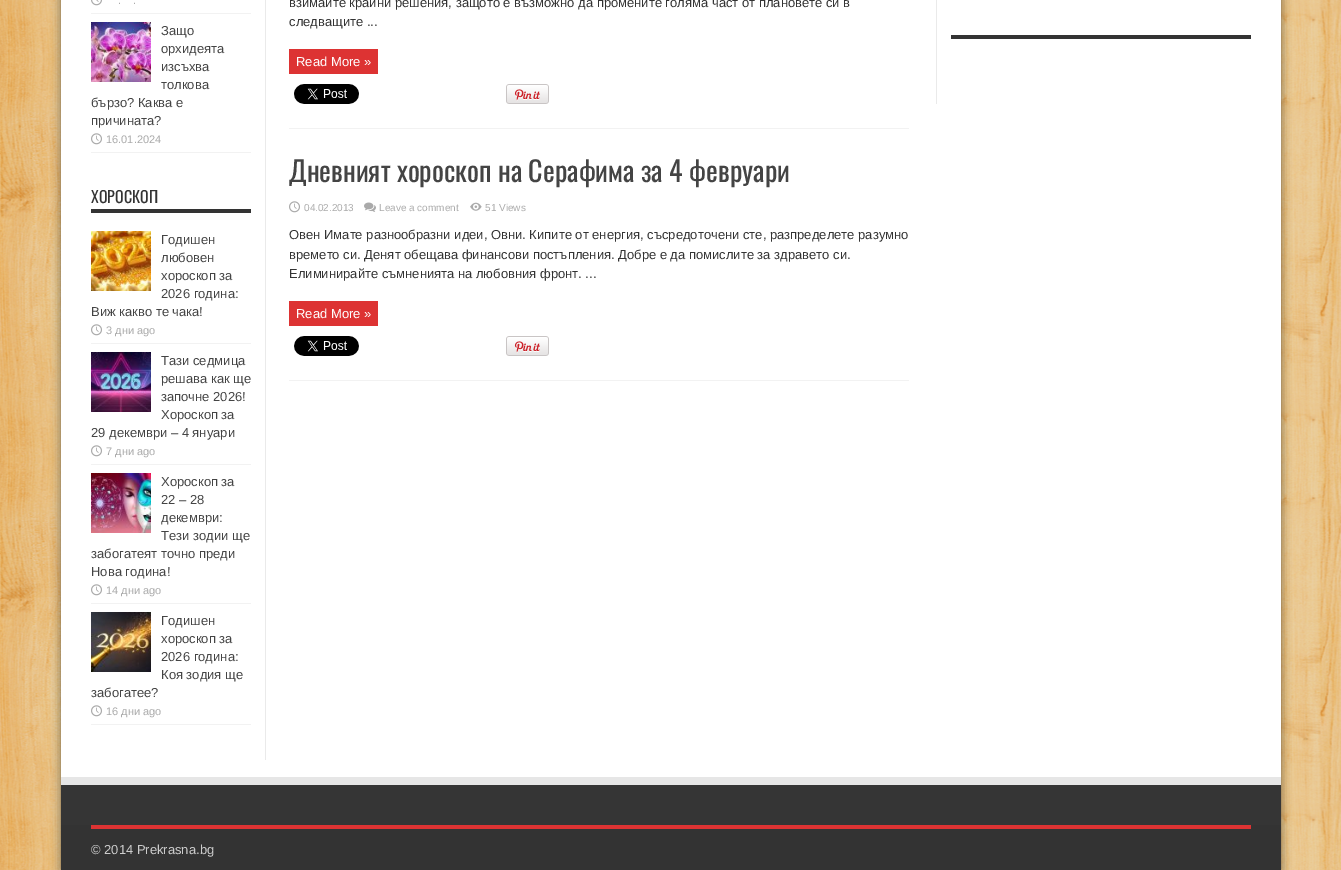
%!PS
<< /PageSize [1341 870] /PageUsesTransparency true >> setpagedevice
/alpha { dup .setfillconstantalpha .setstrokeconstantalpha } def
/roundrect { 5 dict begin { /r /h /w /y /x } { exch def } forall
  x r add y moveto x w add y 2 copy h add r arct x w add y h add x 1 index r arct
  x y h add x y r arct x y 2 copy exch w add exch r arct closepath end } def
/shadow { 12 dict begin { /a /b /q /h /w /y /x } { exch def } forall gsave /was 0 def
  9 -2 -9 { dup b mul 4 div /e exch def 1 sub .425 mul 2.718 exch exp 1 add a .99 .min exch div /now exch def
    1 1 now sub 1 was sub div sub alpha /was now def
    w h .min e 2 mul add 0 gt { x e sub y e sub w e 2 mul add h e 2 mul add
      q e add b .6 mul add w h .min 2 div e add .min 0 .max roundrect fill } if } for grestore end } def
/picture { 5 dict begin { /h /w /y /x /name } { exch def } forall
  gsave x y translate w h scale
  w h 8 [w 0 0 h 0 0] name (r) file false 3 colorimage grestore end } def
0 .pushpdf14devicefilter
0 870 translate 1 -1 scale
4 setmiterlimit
1 setgray
0 0 1341 870 rectfill
(img1.rgb) 0 0 1341 870 picture
0 setgray
61 -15 1220 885 0 5 0.5 shadow
1 setgray
61 0 1220 777 rectfill
0.918 setgray
265 0 1 760 rectfill
0.949 setgray
91 13 160 1 rectfill
(img2.rgb) 91 0 11 6 picture
/LiberationSans-Regular [11 0 0 -11 0 0] selectfont
0.667 setgray
118 4 moveto (.) show
133 4 moveto (.) show
0.949 setgray
91 152 160 1 rectfill
(img3.rgb) 91 22 60 60 picture
/LiberationSans-Regular [13 0 0 -13 0 0] selectfont
0.267 setgray
161 35 moveto (Защо) show
161 53 moveto (орхидеята) show
161 71 moveto (изсъхва) show
161 89 moveto (толкова) show
91 107 moveto (бързо? Каква е) show
91 125 moveto (причината?) show
(img4.rgb) 91 133 11 12 picture
/LiberationSans-Regular [11 0 0 -11 0 0] selectfont
0.667 setgray
106 143 moveto (16.01.2024) show
0.2 setgray
91 209 160 4 rectfill
/Oswald-Regular [16 0 0 -16 0 0] selectfont
91 203 moveto (ХОРОСКОП) show
0.949 setgray
91 343 160 1 rectfill
(img5.rgb) 91 231 60 60 picture
/LiberationSans-Regular [13 0 0 -13 0 0] selectfont
0.267 setgray
161 244 moveto (Годишен) show
161 262 moveto (любовен) show
161 280 moveto (хороскоп за) show
161 298 moveto (2026 година:) show
91 316 moveto (Виж какво те чака!) show
(img4.rgb) 91 324 11 12 picture
/LiberationSans-Regular [11 0 0 -11 0 0] selectfont
0.667 setgray
106 334 moveto (3 дни ago) show
0.949 setgray
91 464 160 1 rectfill
(img6.rgb) 91 352 60 60 picture
/LiberationSans-Regular [13 0 0 -13 0 0] selectfont
0.267 setgray
161 365 moveto (Тази седмица) show
161 383 moveto (решава как ще) show
161 401 moveto (започне 2026!) show
161 419 moveto (Хороскоп за) show
91 437 moveto (29 декември – 4 януари) show
(img4.rgb) 91 445 11 12 picture
/LiberationSans-Regular [11 0 0 -11 0 0] selectfont
0.667 setgray
106 455 moveto (7 дни ago) show
0.949 setgray
91 603 160 1 rectfill
(img7.rgb) 91 473 60 60 picture
/LiberationSans-Regular [13 0 0 -13 0 0] selectfont
0.267 setgray
161 486 moveto (Хороскоп за) show
161 504 moveto (22 – 28) show
161 522 moveto (декември:) show
161 540 moveto (Тези зодии ще) show
91 558 moveto (забогатеят точно преди) show
91 576 moveto (Нова година!) show
(img4.rgb) 91 584 11 12 picture
/LiberationSans-Regular [11 0 0 -11 0 0] selectfont
0.667 setgray
106 594 moveto (14 дни ago) show
0.949 setgray
91 724 160 1 rectfill
(img8.rgb) 91 612 60 60 picture
/LiberationSans-Regular [13 0 0 -13 0 0] selectfont
0.267 setgray
161 625 moveto (Годишен) show
161 643 moveto (хороскоп за) show
161 661 moveto (2026 година:) show
161 679 moveto (Коя зодия ще) show
91 697 moveto (забогатее?) show
(img4.rgb) 91 705 11 12 picture
/LiberationSans-Regular [11 0 0 -11 0 0] selectfont
0.667 setgray
106 715 moveto (16 дни ago) show
0.949 setgray
289 128 620 1 rectfill
/LiberationSans-Regular [13 0 0 -13 0 0] selectfont
0.2 setgray
289 7 moveto (взимайте крайни решения, защото е възможно да промените голяма част от плановете си в) show
289 26 moveto (следващите ...) show
0.867 0.2 0.2 setrgbcolor
289 49 89 25 rectfill
1 setgray
296 66 moveto (Read More ») show
(img9.rgb) 294 84 65 20 picture
(img10.rgb) 506 84 43 20 picture
0.949 setgray
289 380 620 1 rectfill
/Oswald-Regular [28 0 0 -28 0 0] selectfont
0.267 setgray
289 182 moveto (Дневният хороскоп на Серафима за 4 февруари) show
(img4.rgb) 289 201 11 12 picture
/LiberationSans-Regular [10 0 0 -10 0 0] selectfont
0.667 setgray
304 211 moveto (04.02.2013) show
(img11.rgb) 364 202 12 10 picture
379 211 moveto (Leave a comment) show
(img12.rgb) 470 202 12 9 picture
485 211 moveto (51 Views) show
/LiberationSans-Regular [13 0 0 -13 0 0] selectfont
0.2 setgray
289 239 moveto (Овен Имате разнообразни идеи, Овни. Кипите от енергия, съсредоточени сте, разпределете разумно) show
289 259 moveto (времето си. Денят обещава финансови постъпления. Добре е да помислите за здравето си.) show
289 278 moveto (Елиминирайте съмненията на любовния фронт. ...) show
0.867 0.2 0.2 setrgbcolor
289 301 89 25 rectfill
1 setgray
296 318 moveto (Read More ») show
(img13.rgb) 294 336 65 20 picture
(img10.rgb) 506 336 43 20 picture
0.918 setgray
936 0 1 104 rectfill
0.2 setgray
951 35 300 4 rectfill
0.902 setgray
61 777 1220 8 rectfill
0.208 setgray
61 785 1220 40 rectfill
0.2 setgray
61 825 1220 45 rectfill
0.867 0.2 0.2 setrgbcolor
91 825 1160 4 rectfill
0.8 setgray
91 854 moveto (© 2014 Prekrasna.bg) show
.poppdf14devicefilter showpage
